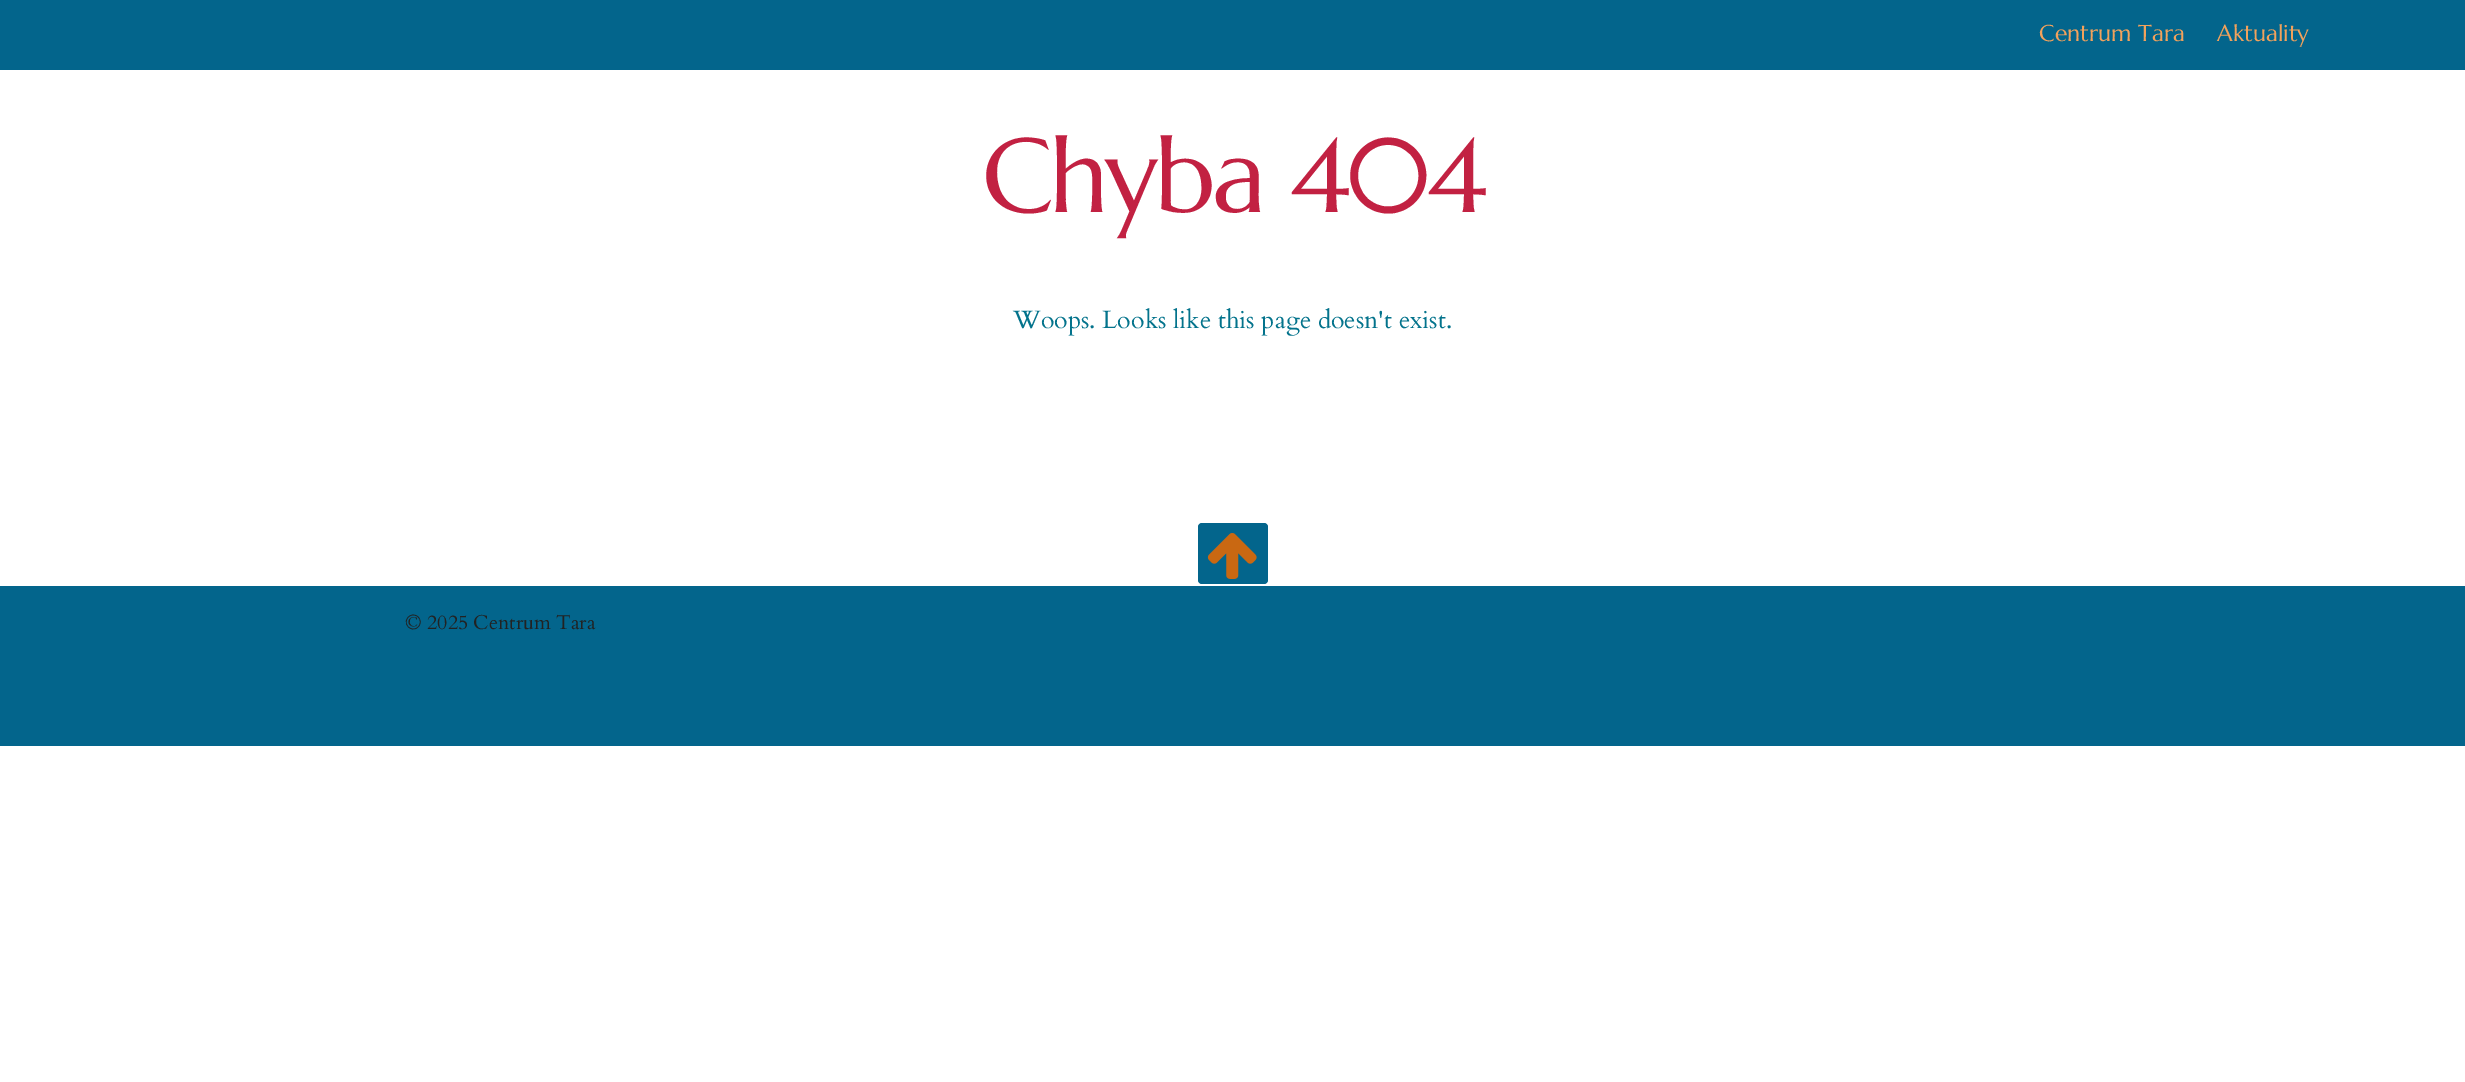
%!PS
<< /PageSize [2465 1082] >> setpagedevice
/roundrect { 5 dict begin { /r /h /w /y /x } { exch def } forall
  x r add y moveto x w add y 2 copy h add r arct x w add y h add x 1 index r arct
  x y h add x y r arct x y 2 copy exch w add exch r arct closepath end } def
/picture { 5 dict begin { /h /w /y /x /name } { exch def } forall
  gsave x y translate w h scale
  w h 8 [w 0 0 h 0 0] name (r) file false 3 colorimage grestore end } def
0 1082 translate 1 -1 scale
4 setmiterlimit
1 setgray
0 0 2465 1082 rectfill
0.012 0.396 0.549 setrgbcolor
0 0 2465 70 rectfill
/Marcellus-Regular [23 0 0 -23 0 0] selectfont
0.949 0.635 0.361 setrgbcolor
2039 41 moveto (Centrum Tara) show
2217 41 moveto (Aktuality) show
/Marcellus-Regular [105 0 0 -105 0 0] selectfont
0.761 0.129 0.259 setrgbcolor
982 212 moveto -3.75 0 (Chyba 404) ashow
/Cardo-Regular [25 0 0 -25 0 0] selectfont
0.012 0.451 0.549 setrgbcolor
1013 328 moveto (Woops. Looks like this page doesn't exist.) show
0.012 0.396 0.549 setrgbcolor
1198 523 70 61 4 roundrect fill
(img1.rgb) 1207 533 50 46 picture
0 586 2465 160 rectfill
/Cardo-Regular [20 0 0 -20 0 0] selectfont
0.133 setgray
405 629 moveto (© 2025 Centrum Tara) show
showpage
